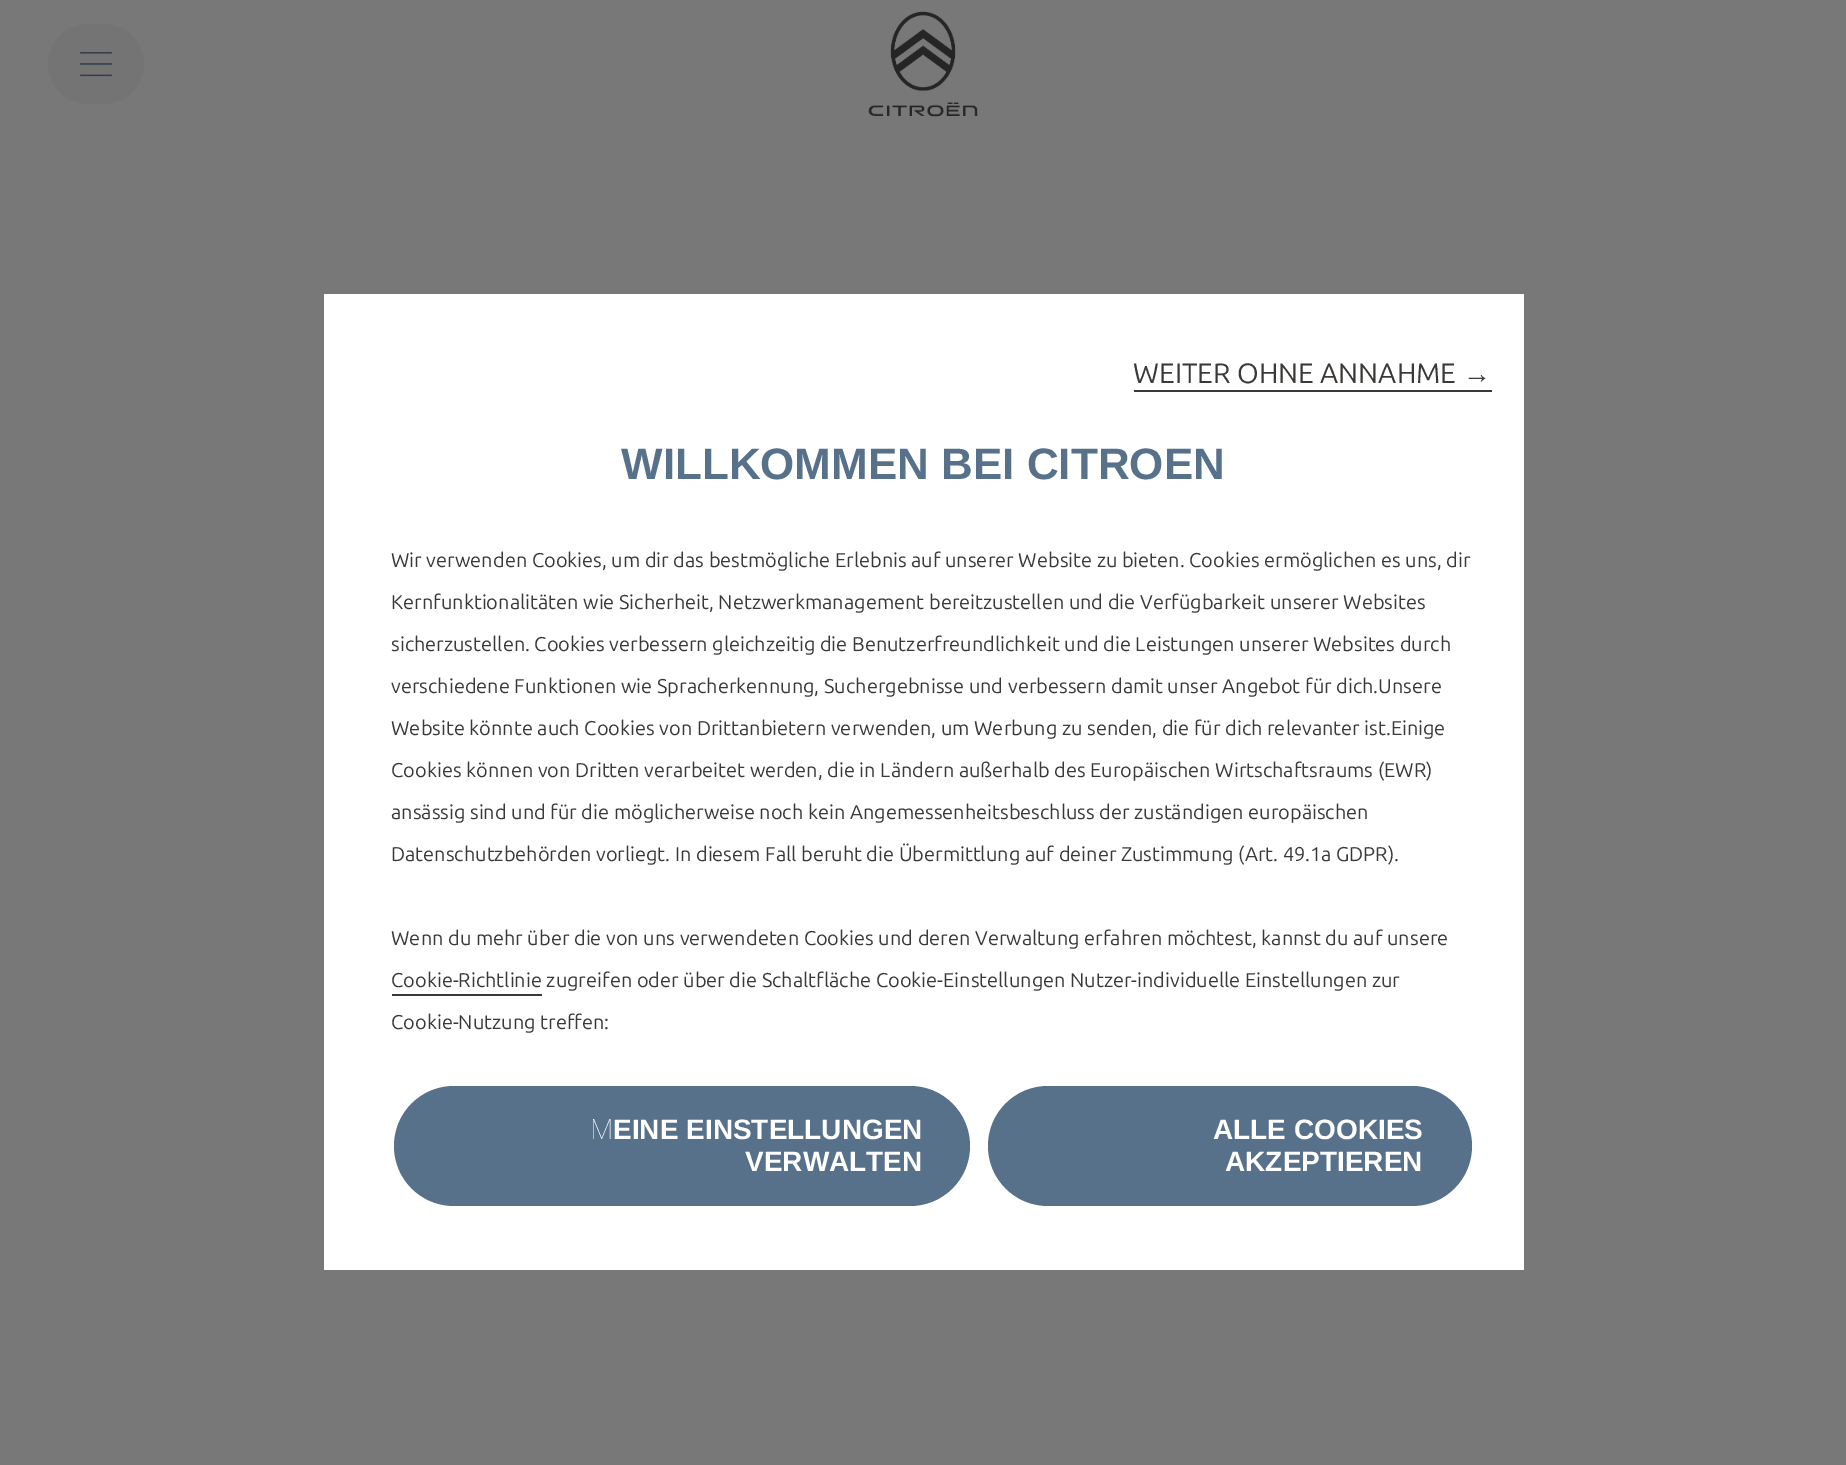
%!PS
<< /PageSize [1846 1465] >> setpagedevice
/roundrect { 5 dict begin { /r /h /w /y /x } { exch def } forall
  x r add y moveto x w add y 2 copy h add r arct x w add y h add x 1 index r arct
  x y h add x y r arct x y 2 copy exch w add exch r arct closepath end } def
/picture { 5 dict begin { /h /w /y /x /name } { exch def } forall
  gsave x y translate w h scale
  w h 8 [w 0 0 h 0 0] name (r) file false 3 colorimage grestore end } def
0 1465 translate 1 -1 scale
4 setmiterlimit
0.471 setgray
0 0 1846 1465 rectfill
0.455 setgray
48 24 96 80 40 roundrect fill
(img1.rgb) 80 52 32 25 picture
(img2.rgb) 868 11 110 106 picture
1 setgray
324 294 1200 976 rectfill
/Ubuntu-Regular [28 0 0 -28 0 0] selectfont
0.231 0.224 0.22 setrgbcolor
1133 383 moveto (WEITER OHNE ANNAHME) show
/LiberationSans-Regular [28 0 0 -28 0 0] selectfont
1463 383 moveto (→) show
1134 390 358 2 rectfill
/LiberationSans-Bold [44 0 0 -44 0 0] selectfont
0.341 0.443 0.541 setrgbcolor
621 479 moveto (WILLKOMMEN BEI CITROEN) show
/Ubuntu-Regular [20 0 0 -20 0 0] selectfont
0.231 0.224 0.22 setrgbcolor
391 567 moveto (Wir verwenden Cookies, um dir das bestmögliche Erlebnis auf unserer Website zu bieten. Cookies ermöglichen es uns, dir) show
391 609 moveto (Kernfunktionalitäten wie Sicherheit, Netzwerkmanagement bereitzustellen und die Verfügbarkeit unserer Websites) show
391 651 moveto (sicherzustellen. Cookies verbessern gleichzeitig die Benutzerfreundlichkeit und die Leistungen unserer Websites durch) show
391 693 moveto (verschiedene Funktionen wie Spracherkennung, Suchergebnisse und verbessern damit unser Angebot für dich.Unsere) show
391 735 moveto (Website könnte auch Cookies von Drittanbietern verwenden, um Werbung zu senden, die für dich relevanter ist.Einige) show
391 777 moveto (Cookies können von Dritten verarbeitet werden, die in Ländern außerhalb des Europäischen Wirtschaftsraums \(EWR\)) show
391 819 moveto (ansässig sind und für die möglicherweise noch kein Angemessenheitsbeschluss der zuständigen europäischen) show
391 861 moveto (Datenschutzbehörden vorliegt. In diesem Fall beruht die Übermittlung auf deiner Zustimmung \(Art. 49.1a GDPR\).) show
391 945 moveto (Wenn du mehr über die von uns verwendeten Cookies und deren Verwaltung erfahren möchtest, kannst du auf unsere) show
391 987 moveto (Cookie-Richtlinie zugreifen oder über die Schaltfläche Cookie-Einstellungen Nutzer-individuelle Einstellungen zur) show
392 994 150 2 rectfill
391 1029 moveto (Cookie-Nutzung treffen:) show
0.341 0.443 0.541 setrgbcolor
394 1086 576 120 60 roundrect fill
/NotoSans-Thin [28 0 0 -28 0 0] selectfont
1 setgray
590 1139 moveto (M) show
/LiberationSans-Bold [28 0 0 -28 0 0] selectfont
613 1139 moveto (EINE EINSTELLUNGEN) show
745 1171 moveto (VERWALTEN) show
0.341 0.443 0.541 setrgbcolor
988 1086 484 120 60 roundrect fill
1 setgray
1213 1139 moveto (ALLE COOKIES) show
1225 1171 moveto (AKZEPTIEREN) show
showpage
